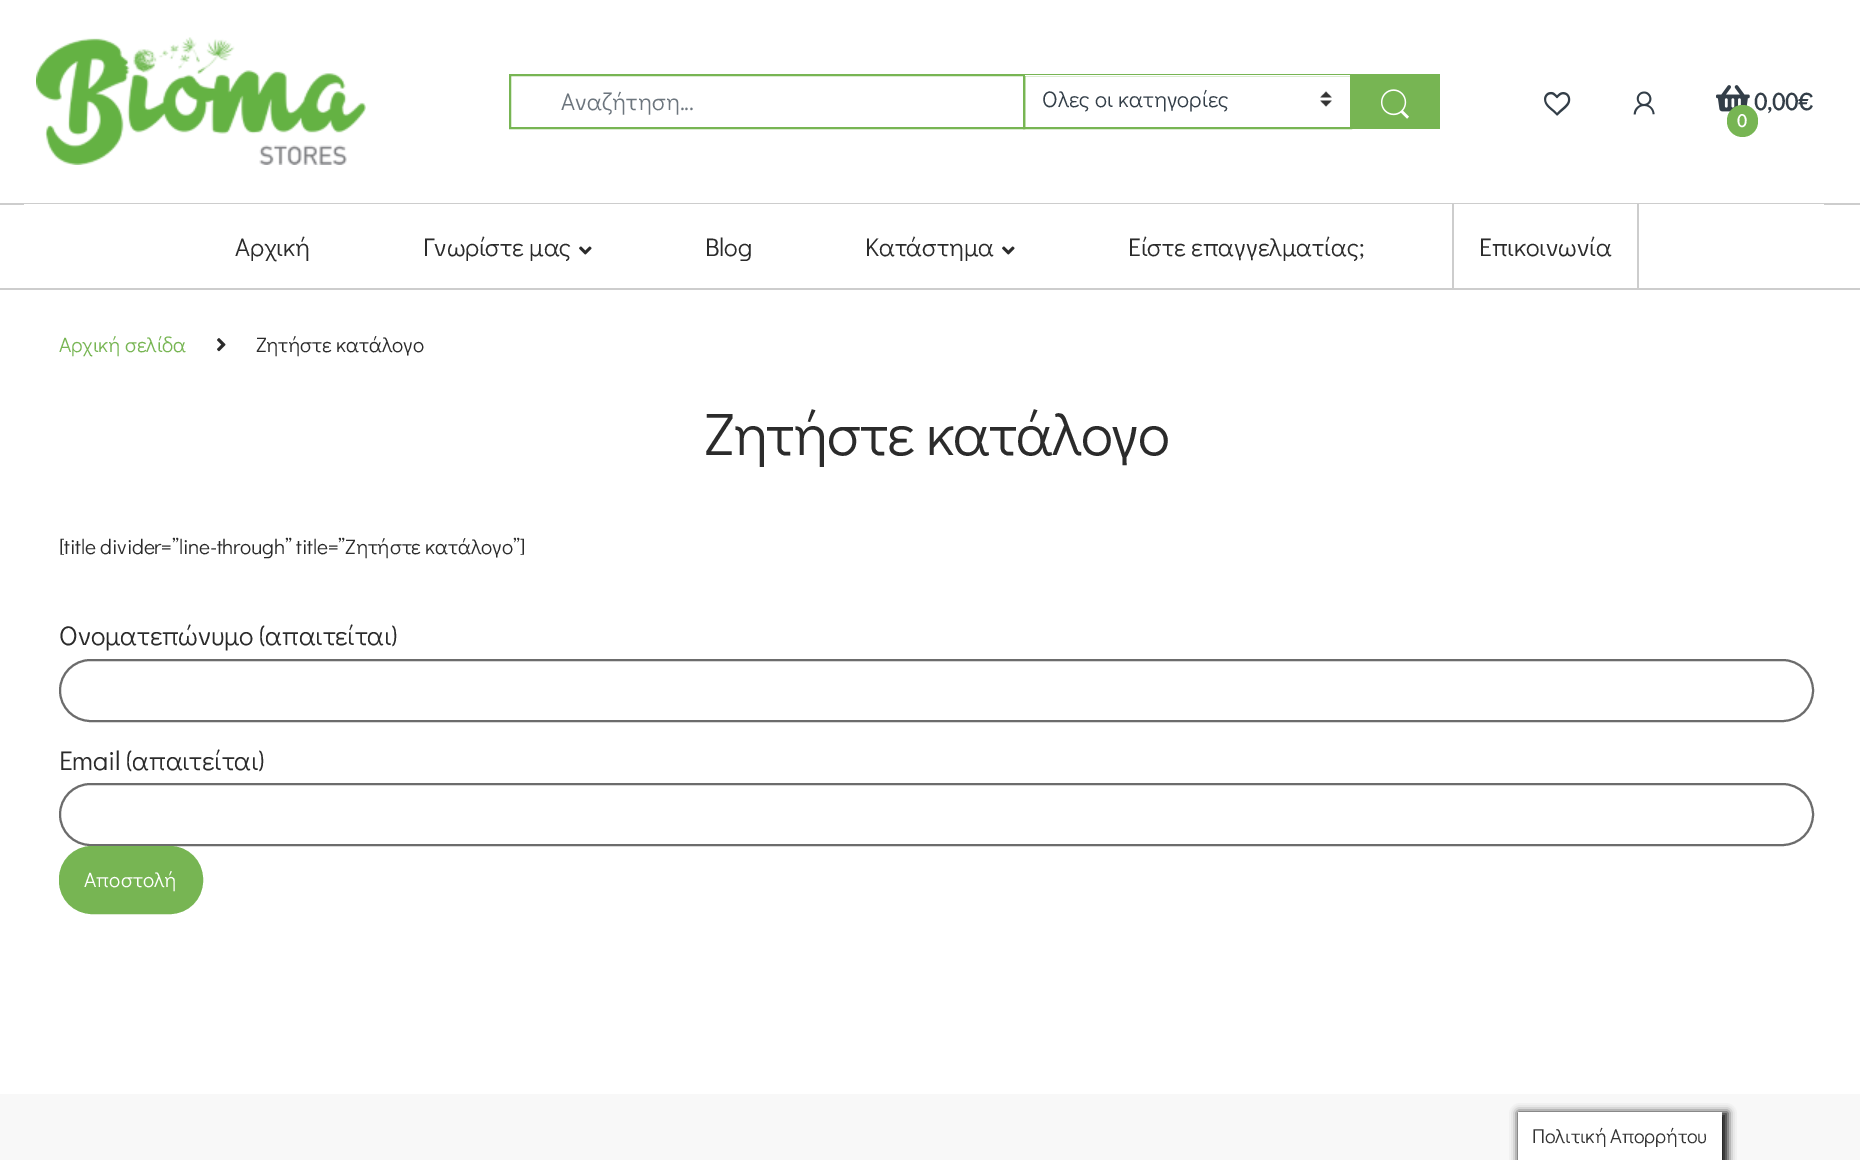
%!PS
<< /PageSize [1872 1160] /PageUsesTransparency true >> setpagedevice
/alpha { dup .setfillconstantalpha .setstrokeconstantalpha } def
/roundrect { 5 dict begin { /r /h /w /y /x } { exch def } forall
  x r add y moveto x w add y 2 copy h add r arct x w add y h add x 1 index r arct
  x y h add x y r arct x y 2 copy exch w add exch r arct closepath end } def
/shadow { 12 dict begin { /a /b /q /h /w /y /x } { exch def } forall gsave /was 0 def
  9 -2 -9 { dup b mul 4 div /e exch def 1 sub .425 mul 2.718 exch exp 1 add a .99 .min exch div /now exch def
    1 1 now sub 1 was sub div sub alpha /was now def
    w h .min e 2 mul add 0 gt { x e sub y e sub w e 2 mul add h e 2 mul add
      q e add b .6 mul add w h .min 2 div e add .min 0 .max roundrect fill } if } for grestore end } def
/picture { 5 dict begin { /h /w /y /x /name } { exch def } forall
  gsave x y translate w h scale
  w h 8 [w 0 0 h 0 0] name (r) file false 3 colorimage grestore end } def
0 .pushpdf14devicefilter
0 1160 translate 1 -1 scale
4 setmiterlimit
1 setgray
0 0 1872 1160 rectfill
(img1.rgb) 36 37 330 128 picture
0.467 0.71 0.325 setrgbcolor
2 setlinewidth
510 75 514 53 rectstroke
/DidactGothic-Regular [24 0 0 -24 0 0] selectfont
0.424 0.459 0.49 setrgbcolor
561 110 moveto (Αναζήτηση...) show
0.467 0.71 0.325 setrgbcolor
1024 75 327 53 rectstroke
1 setgray
1025 75 325 1 rectfill
(img2.rgb) 1320 91 12 16 picture
gsave
1043 84 255 30 rectclip
/DidactGothic-Regular [22.5 0 0 -22.5 0 0] selectfont
0.2 0.243 0.282 setrgbcolor
1042 107 moveto (Όλες οι κατηγορίες) show
grestore
0.467 0.71 0.325 setrgbcolor
1352 74 88 55 rectfill
(img3.rgb) 1380 89 29 30 picture
(img4.rgb) 1544 91 27 25 picture
(img5.rgb) 1633 91 22 24 picture
(img6.rgb) 1716 85 34 27 picture
/DidactGothic-Bold [24 0 0 -24 0 0] selectfont
0.2 0.243 0.282 setrgbcolor
1754 110 moveto -0.2 0 (0,00€) ashow
0.467 0.71 0.325 setrgbcolor
1727 105 31 32 15.5 roundrect fill
/DidactGothic-Bold [18 0 0 -18 0 0] selectfont
1 setgray
1737 127 moveto -0.2 0 (0) ashow
0.804 setgray
0 203 1860 2 rectfill
0 288 1860 2 rectfill
1 setgray
24 204 1800 1 rectfill
/DidactGothic-Regular [25.5 0 0 -25.5 0 0] selectfont
0.169 setgray
235 256 moveto -0.2 0 (Αρχική) ashow
423 256 moveto -0.2 0 (Γνωρίστε μας) ashow
(img7.rgb) 579 246 13 9 picture
705 256 moveto -0.2 0 (Blog) ashow
865 256 moveto -0.2 0 (Κατάστημα) ashow
(img7.rgb) 1002 246 13 9 picture
1128 256 moveto -0.2 0 (Είστε επαγγελματίας;) ashow
0.804 setgray
1637 204 2 84 rectfill
1452 204 2 84 rectfill
0.169 setgray
1479 256 moveto -0.2 0 (Επικοινωνία) ashow
/DidactGothic-Regular [21 0 0 -21 0 0] selectfont
0.467 0.71 0.325 setrgbcolor
59 352 moveto -0.2 0 (Αρχική σελίδα) ashow
(img8.rgb) 217 338 9 14 picture
0.169 setgray
256 352 moveto -0.2 0 (Ζητήστε κατάλογο) ashow
/DidactGothic-Regular [60 0 0 -60 0 0] selectfont
704 455 moveto -1.5 0 (Ζητήστε κατάλογο) ashow
/DidactGothic-Regular [21 0 0 -21 0 0] selectfont
59 554 moveto -0.2 0 ([title divider=”line-through” title=”Ζητήστε κατάλογο”]) ashow
/DidactGothic-Regular [27 0 0 -27 0 0] selectfont
59 645 moveto -0.2 0 (Ονοματεπώνυμο \(απαιτείται\)) ashow
0.424 setgray
60 660 1753 61 30.5 roundrect stroke
0.169 setgray
59 770 moveto -0.2 0 (Email \(απαιτείται\)) ashow
0.424 setgray
60 784 1753 61 30.5 roundrect stroke
0.467 0.71 0.325 setrgbcolor
60 847 142 66 32 roundrect gsave fill grestore
stroke
/DidactGothic-Regular [21 0 0 -21 0 0] selectfont
1 setgray
84 887 moveto (Αποστολή) show
0.973 setgray
0 1094 1860 66 rectfill
0.086 setgray
1518 1112 210 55 0 4 1 shadow
1 setgray
1518 1112 204 48 rectfill
/DidactGothic-Regular [20 0 0 -20 0 0] selectfont
0.2 setgray
1532 1143 moveto -0.2 0 (Πολιτική Απορρήτου) ashow
.poppdf14devicefilter showpage
